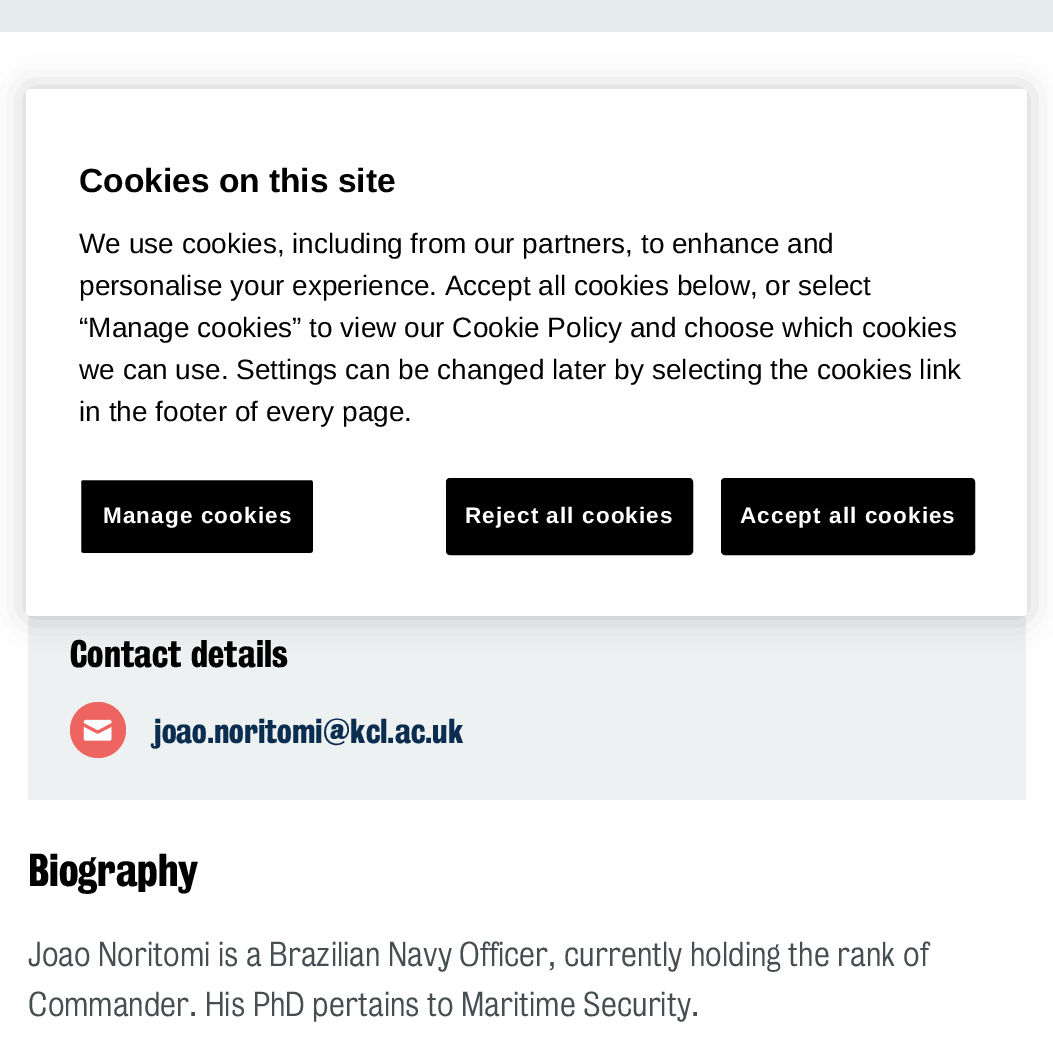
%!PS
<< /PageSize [1053 1047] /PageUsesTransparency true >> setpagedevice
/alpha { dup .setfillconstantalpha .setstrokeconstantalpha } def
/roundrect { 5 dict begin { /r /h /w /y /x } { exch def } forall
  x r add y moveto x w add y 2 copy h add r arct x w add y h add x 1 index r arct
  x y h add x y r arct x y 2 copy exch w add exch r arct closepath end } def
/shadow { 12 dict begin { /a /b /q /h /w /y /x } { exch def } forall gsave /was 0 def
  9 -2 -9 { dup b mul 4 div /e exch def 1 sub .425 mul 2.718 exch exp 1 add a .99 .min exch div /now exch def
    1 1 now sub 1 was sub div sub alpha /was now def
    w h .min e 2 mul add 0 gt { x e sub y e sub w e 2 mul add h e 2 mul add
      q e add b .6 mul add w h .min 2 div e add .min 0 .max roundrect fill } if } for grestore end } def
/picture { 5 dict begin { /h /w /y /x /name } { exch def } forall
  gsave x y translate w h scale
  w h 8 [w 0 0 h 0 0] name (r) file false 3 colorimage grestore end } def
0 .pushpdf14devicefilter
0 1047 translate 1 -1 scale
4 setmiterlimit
1 setgray
0 0 1053 1047 rectfill
0.929 0.945 0.949 setrgbcolor
28 614 998 186 rectfill
0 setgray
26 89 1001 527 4 16 0.2 shadow
1 setgray
26 89 1001 527 4 roundrect fill
/LiberationSans-Bold [33.5 0 0 -33.5 0 0] selectfont
0 setgray
79 192 moveto (Cookies on this site) show
/LiberationSans-Regular [28 0 0 -28 0 0] selectfont
79 253 moveto (We use cookies, including from our partners, to enhance and) show
79 295 moveto (personalise your experience. Accept all cookies below, or select) show
79 337 moveto (“Manage cookies” to view our Cookie Policy and choose which cookies) show
79 379 moveto (we can use. Settings can be changed later by selecting the cookies link) show
79 421 moveto (in the footer of every page.) show
80 479 234 75 3 roundrect gsave fill grestore
1 setgray
2 setlinewidth
stroke
/LiberationSans-Bold [22.5 0 0 -22.5 0 0] selectfont
103 523 moveto 1.1 0 (Manage cookies) ashow
0 setgray
447 479 245 75 3 roundrect gsave fill grestore
stroke
1 setgray
465 523 moveto 1.1 0 (Reject all cookies) ashow
0 setgray
722 479 252 75 3 roundrect gsave fill grestore
stroke
1 setgray
740 523 moveto 1.1 0 (Accept all cookies) ashow
0.902 0.922 0.929 setrgbcolor
0 0 1053 32 rectfill
/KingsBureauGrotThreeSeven-Bold [35 0 0 -35 0 0] selectfont
0 setgray
70 667 moveto (Contact details) show
0.933 0.392 0.38 setrgbcolor
newpath 98 730 28 0 360 arc closepath fill
(img1.rgb) 83 719 29 22 picture
/KingsBureauGrotThreeSeven-Bold [31.5 0 0 -31.5 0 0] selectfont
0.039 0.176 0.314 setrgbcolor
154 743 moveto (joao.noritomi@kcl.ac.uk) show
/KingsBureauGrotThreeSeven-Bold [42 0 0 -42 0 0] selectfont
0 setgray
28 886 moveto (Biography) show
/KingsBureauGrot-Light [31.5 0 0 -31.5 0 0] selectfont
0.275 0.306 0.322 setrgbcolor
28 966 moveto (Joao Noritomi is a Brazilian Navy Officer, currently holding the rank of) show
28 1016 moveto (Commander. His PhD pertains to Maritime Security.) show
.poppdf14devicefilter showpage
